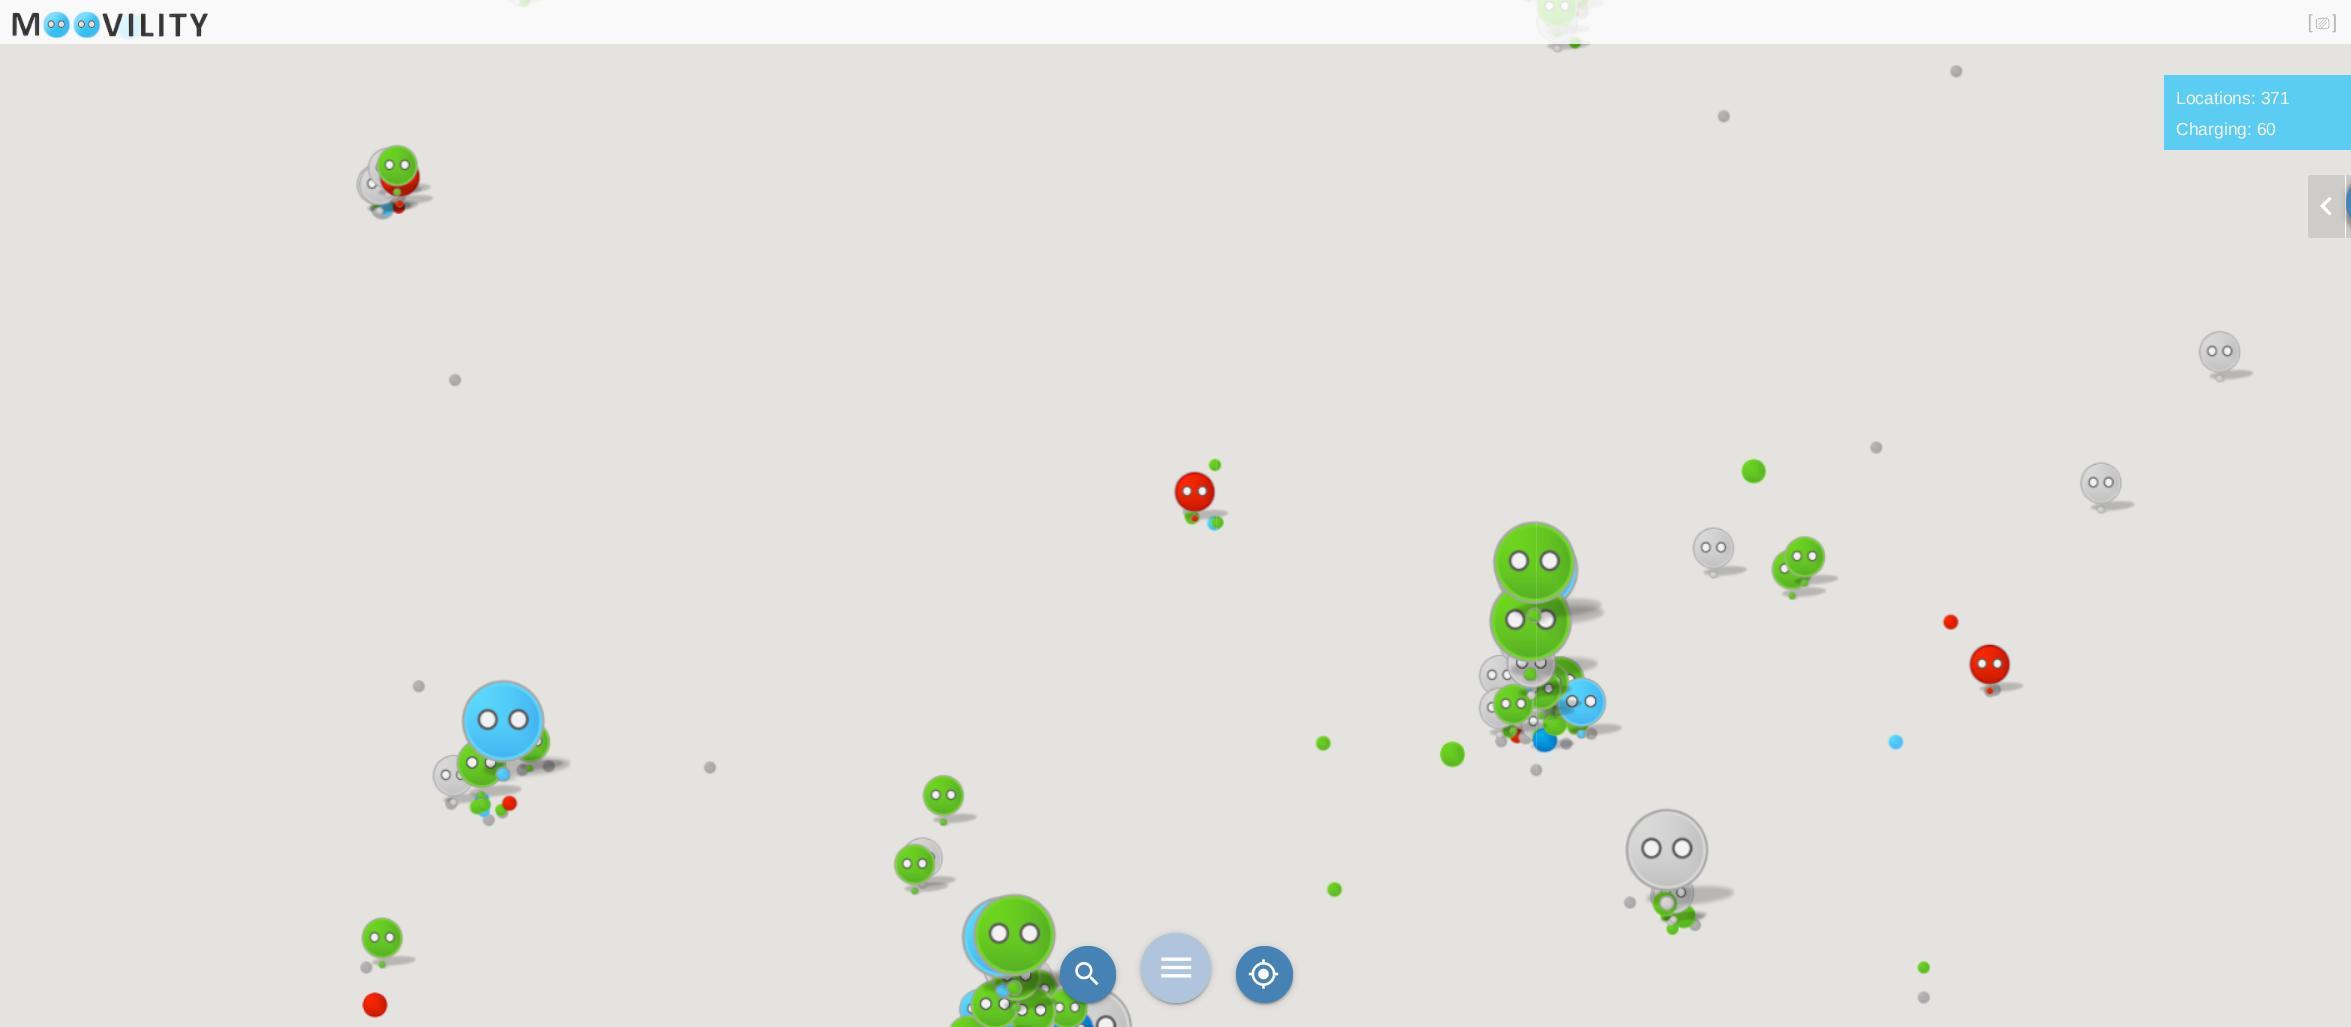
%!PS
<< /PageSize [2351 1027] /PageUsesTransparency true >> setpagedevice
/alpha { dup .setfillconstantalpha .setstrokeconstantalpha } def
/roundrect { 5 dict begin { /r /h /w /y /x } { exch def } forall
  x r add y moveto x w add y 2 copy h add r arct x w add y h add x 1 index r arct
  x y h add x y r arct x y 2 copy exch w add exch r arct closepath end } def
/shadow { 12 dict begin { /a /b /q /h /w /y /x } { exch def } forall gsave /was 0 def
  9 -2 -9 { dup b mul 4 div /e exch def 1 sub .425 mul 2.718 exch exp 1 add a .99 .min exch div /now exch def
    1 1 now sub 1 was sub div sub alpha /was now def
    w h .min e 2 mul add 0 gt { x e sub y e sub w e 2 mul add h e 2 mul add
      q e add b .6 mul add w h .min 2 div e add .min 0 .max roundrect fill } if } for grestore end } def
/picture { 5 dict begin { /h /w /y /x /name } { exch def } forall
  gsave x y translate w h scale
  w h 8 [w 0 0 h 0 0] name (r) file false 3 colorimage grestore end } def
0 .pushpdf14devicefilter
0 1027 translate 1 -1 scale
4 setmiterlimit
0.898 0.89 0.875 setrgbcolor
0 0 2351 1027 rectfill
(img3.rgb) 506 0 42 5 picture
(img4.rgb) 1522 0 15 3 picture
(img5.rgb) 1536 0 69 5 picture
(img6.rgb) 116 13 31 28 picture
(img7.rgb) 356 5 173 215 picture
(img8.rgb) 1536 5 195 118 picture
0.8 alpha
1 setgray
0 0 2351 44 rectfill
1 alpha
(img1.rgb) 12 11 196 28 picture
(img2.rgb) 2308 14 28 19 picture
(img9.rgb) 1950 65 13 13 picture
(img10.rgb) 448 373 14 14 picture
(img11.rgb) 2198 330 56 53 picture
(img13.rgb) 1216 458 321 187 picture
(img12.rgb) 1173 458 44 74 picture
(img14.rgb) 1536 458 303 187 picture
(img15.rgb) 1870 441 265 204 picture
(img16.rgb) 360 679 211 286 picture
(img18.rgb) 896 774 161 191 picture
(img17.rgb) 703 761 194 113 picture
(img20.rgb) 1536 645 199 291 picture
(img19.rgb) 1315 645 222 253 picture
(img21.rgb) 1887 645 137 320 picture
(img22.rgb) 360 965 43 53 picture
(img23.rgb) 949 965 184 62 picture
(img24.rgb) 1917 965 14 39 picture
0.361 0.804 0.949 setrgbcolor
2164 75 187 75 rectfill
/LiberationSans-Regular [17.5 0 0 -17.5 0 0] selectfont
0.961 0.957 0.949 setrgbcolor
2176 104 moveto (Locations: 371) show
2176 135 moveto (Charging: 60) show
0.808 0.8 0.788 setrgbcolor
newpath 2311 175 moveto 2351 175 lineto 2351 238 lineto 2311 238 lineto 2309.5 238 2308 236.5 2308 235 curveto 2308 178 lineto 2308 176.5 2309.5 175 2311 175 curveto closepath fill
1 setgray
2345 175 1 63 rectfill
0 setgray
2346 176 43 57 28.5 3 0.2 shadow
2346 178 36 56 28 1 0.14 shadow
0.275 0.51 0.706 setrgbcolor
newpath 2374 175 moveto 2351 175 lineto 2351 231 lineto 2374 231 lineto 2358.5 231 2346 218.5 2346 203 curveto 2346 187.5 2358.5 175 2374 175 curveto closepath fill
1 setgray
newpath 2331.5 199 moveto 2324.5 206 lineto 2331.5 213.5 lineto 2329.5 215.5 lineto 2320 206 lineto 2329.5 197 lineto closepath fill
0 setgray
1060 948 56 56 28 3 0.2 shadow
1063 953 51 51 25.5 0.5 0.12 shadow
1060 949 56 56 28 1 0.14 shadow
0.275 0.51 0.706 setrgbcolor
1060 946 56 57 28 roundrect fill
(img25.rgb) 1075 962 24 24 picture
0 setgray
1141 934 70 70 35 3 0.2 shadow
1144 939 65 65 32.5 0.5 0.12 shadow
1141 935 70 70 35 1 0.14 shadow
0.69 0.769 0.871 setrgbcolor
newpath 1176 968 35 0 360 arc closepath fill
(img26.rgb) 1161 957 31 21 picture
0 setgray
1236 948 57 56 28 3 0.2 shadow
1239 953 51 51 25.5 0.5 0.12 shadow
1236 949 57 56 28 1 0.14 shadow
0.275 0.51 0.706 setrgbcolor
newpath 1264.5 974.5 28.5 0 360 arc closepath fill
(img27.rgb) 1248 959 31 30 picture
.poppdf14devicefilter showpage
